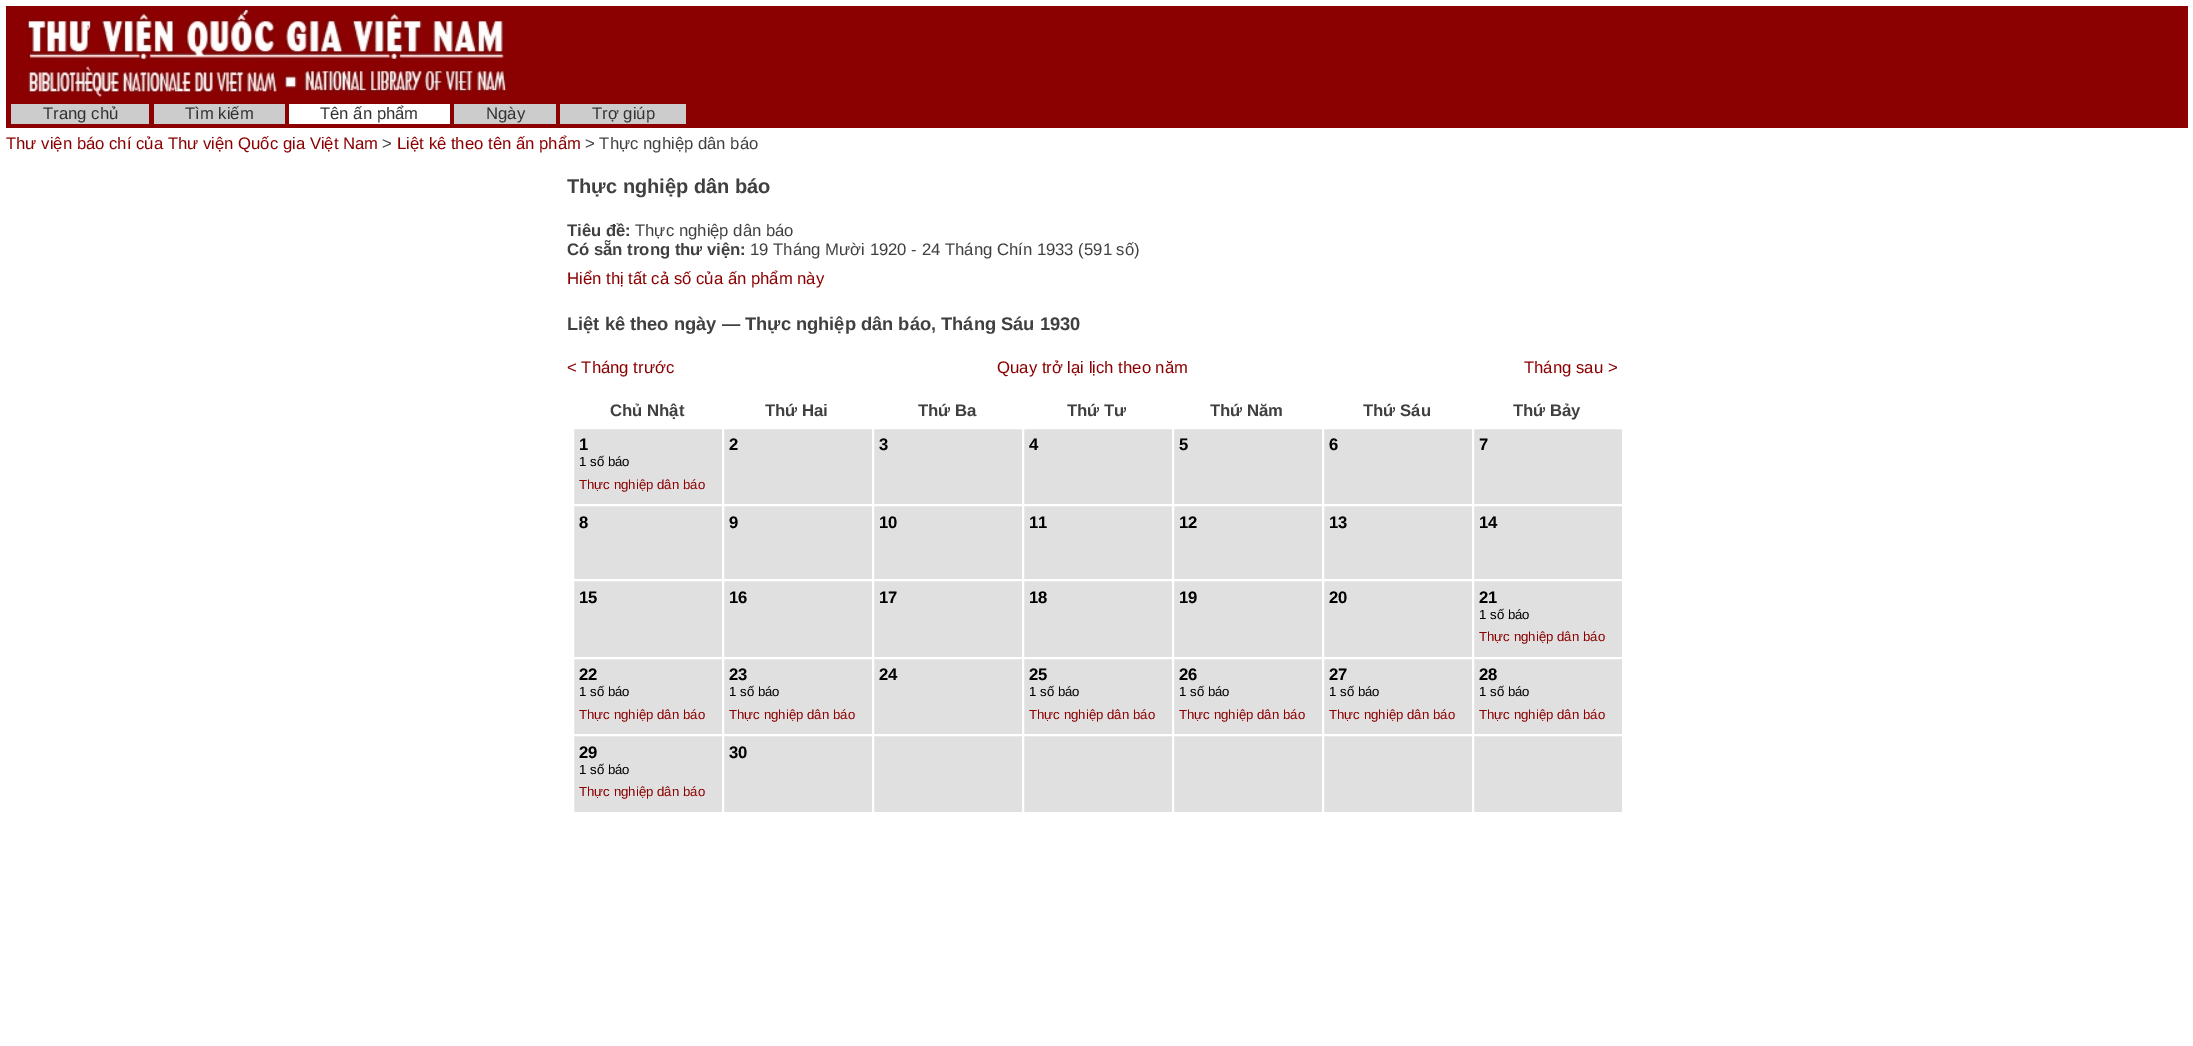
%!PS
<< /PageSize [2193 1046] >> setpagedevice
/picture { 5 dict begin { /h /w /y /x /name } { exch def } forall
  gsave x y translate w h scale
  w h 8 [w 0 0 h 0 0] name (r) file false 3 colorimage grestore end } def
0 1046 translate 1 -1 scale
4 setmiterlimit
1 setgray
0 0 2193 1046 rectfill
0.545 0 0 setrgbcolor
6 6 2182 122 rectfill
(img1.rgb) 26 7 481 91 picture
0.8 setgray
11 104 138 20 rectfill
/LiberationSans-Regular [16.7 0 0 -16.7 0 0] selectfont
0.2 setgray
43 119 moveto (Trang chủ) show
0.8 setgray
154 104 131 20 rectfill
0.2 setgray
185 119 moveto (Tìm kiếm) show
1 setgray
289 104 161 20 rectfill
0.2 setgray
320 119 moveto (Tên ấn phẩm) show
0.8 setgray
454 104 102 20 rectfill
0.2 setgray
486 119 moveto (Ngày) show
0.8 setgray
560 104 126 20 rectfill
0.2 setgray
592 119 moveto (Trợ giúp) show
0.545 0 0 setrgbcolor
6 149 moveto (Thư viện báo chí của Thư viện Quốc gia Việt Nam) show
0.251 setgray
382 149 moveto (>) show
0.545 0 0 setrgbcolor
397 149 moveto (Liệt kê theo tên ấn phẩm) show
0.251 setgray
585 149 moveto (> Thực nghiệp dân báo) show
/LiberationSans-Bold [20 0 0 -20 0 0] selectfont
567 193 moveto (Thực nghiệp dân báo) show
/LiberationSans-Bold [16.7 0 0 -16.7 0 0] selectfont
567 236 moveto (Tiêu đề:) show
/LiberationSans-Regular [16.7 0 0 -16.7 0 0] selectfont
635 236 moveto (Thực nghiệp dân báo) show
/LiberationSans-Bold [16.7 0 0 -16.7 0 0] selectfont
567 255 moveto (Có sẵn trong thư viện:) show
/LiberationSans-Regular [16.7 0 0 -16.7 0 0] selectfont
750 255 moveto (19 Tháng Mười 1920 - 24 Tháng Chín 1933 \(591 số\)) show
0.545 0 0 setrgbcolor
567 284 moveto (Hiển thị tất cả số của ấn phẩm này) show
/LiberationSans-Bold [18.3 0 0 -18.3 0 0] selectfont
0.251 setgray
567 330 moveto (Liệt kê theo ngày — Thực nghiệp dân báo, Tháng Sáu 1930) show
/LiberationSans-Regular [16.7 0 0 -16.7 0 0] selectfont
0.545 0 0 setrgbcolor
567 373 moveto (< Tháng trước) show
997 373 moveto (Quay trở lại lịch theo năm) show
1524 373 moveto (Tháng sau >) show
/LiberationSans-Bold [16.7 0 0 -16.7 0 0] selectfont
0.251 setgray
610 416 moveto (Chủ Nhật) show
765 416 moveto (Thứ Hai) show
918 416 moveto (Thứ Ba) show
1067 416 moveto (Thứ Tư) show
1210 416 moveto (Thứ Năm) show
1363 416 moveto (Thứ Sáu) show
1513 416 moveto (Thứ Bảy) show
0.878 setgray
574 429 1048 75 rectfill
1 setgray
573.5 428.5 149 76 rectstroke
0 setgray
579 450 moveto (1) show
/LiberationSans-Regular [13.25 0 0 -13.25 0 0] selectfont
579 466 moveto (1 số báo) show
0.545 0 0 setrgbcolor
579 489 moveto (Thực nghiệp dân báo) show
1 setgray
723.5 428.5 149 76 rectstroke
/LiberationSans-Bold [16.7 0 0 -16.7 0 0] selectfont
0 setgray
729 450 moveto (2) show
1 setgray
873.5 428.5 149 76 rectstroke
0 setgray
879 450 moveto (3) show
1 setgray
1023.5 428.5 149 76 rectstroke
0 setgray
1029 450 moveto (4) show
1 setgray
1173.5 428.5 149 76 rectstroke
0 setgray
1179 450 moveto (5) show
1 setgray
1323.5 428.5 149 76 rectstroke
0 setgray
1329 450 moveto (6) show
1 setgray
1473.5 428.5 149 76 rectstroke
0 setgray
1479 450 moveto (7) show
0.878 setgray
574 506 1048 73 rectfill
1 setgray
573.5 505.5 149 74 rectstroke
0 setgray
579 528 moveto (8) show
1 setgray
723.5 505.5 149 74 rectstroke
0 setgray
729 528 moveto (9) show
1 setgray
873.5 505.5 149 74 rectstroke
0 setgray
879 528 moveto (10) show
1 setgray
1023.5 505.5 149 74 rectstroke
0 setgray
1029 528 moveto (11) show
1 setgray
1173.5 505.5 149 74 rectstroke
0 setgray
1179 528 moveto (12) show
1 setgray
1323.5 505.5 149 74 rectstroke
0 setgray
1329 528 moveto (13) show
1 setgray
1473.5 505.5 149 74 rectstroke
0 setgray
1479 528 moveto (14) show
0.878 setgray
574 581 1048 76 rectfill
1 setgray
573.5 580.5 149 77 rectstroke
0 setgray
579 603 moveto (15) show
1 setgray
723.5 580.5 149 77 rectstroke
0 setgray
729 603 moveto (16) show
1 setgray
873.5 580.5 149 77 rectstroke
0 setgray
879 603 moveto (17) show
1 setgray
1023.5 580.5 149 77 rectstroke
0 setgray
1029 603 moveto (18) show
1 setgray
1173.5 580.5 149 77 rectstroke
0 setgray
1179 603 moveto (19) show
1 setgray
1323.5 580.5 149 77 rectstroke
0 setgray
1329 603 moveto (20) show
1 setgray
1473.5 580.5 149 77 rectstroke
0 setgray
1479 603 moveto (21) show
/LiberationSans-Regular [13.25 0 0 -13.25 0 0] selectfont
1479 619 moveto (1 số báo) show
0.545 0 0 setrgbcolor
1479 641 moveto (Thực nghiệp dân báo) show
0.878 setgray
574 659 1048 75 rectfill
1 setgray
573.5 658.5 149 76 rectstroke
/LiberationSans-Bold [16.7 0 0 -16.7 0 0] selectfont
0 setgray
579 680 moveto (22) show
/LiberationSans-Regular [13.25 0 0 -13.25 0 0] selectfont
579 696 moveto (1 số báo) show
0.545 0 0 setrgbcolor
579 719 moveto (Thực nghiệp dân báo) show
1 setgray
723.5 658.5 149 76 rectstroke
/LiberationSans-Bold [16.7 0 0 -16.7 0 0] selectfont
0 setgray
729 680 moveto (23) show
/LiberationSans-Regular [13.25 0 0 -13.25 0 0] selectfont
729 696 moveto (1 số báo) show
0.545 0 0 setrgbcolor
729 719 moveto (Thực nghiệp dân báo) show
1 setgray
873.5 658.5 149 76 rectstroke
/LiberationSans-Bold [16.7 0 0 -16.7 0 0] selectfont
0 setgray
879 680 moveto (24) show
1 setgray
1023.5 658.5 149 76 rectstroke
0 setgray
1029 680 moveto (25) show
/LiberationSans-Regular [13.25 0 0 -13.25 0 0] selectfont
1029 696 moveto (1 số báo) show
0.545 0 0 setrgbcolor
1029 719 moveto (Thực nghiệp dân báo) show
1 setgray
1173.5 658.5 149 76 rectstroke
/LiberationSans-Bold [16.7 0 0 -16.7 0 0] selectfont
0 setgray
1179 680 moveto (26) show
/LiberationSans-Regular [13.25 0 0 -13.25 0 0] selectfont
1179 696 moveto (1 số báo) show
0.545 0 0 setrgbcolor
1179 719 moveto (Thực nghiệp dân báo) show
1 setgray
1323.5 658.5 149 76 rectstroke
/LiberationSans-Bold [16.7 0 0 -16.7 0 0] selectfont
0 setgray
1329 680 moveto (27) show
/LiberationSans-Regular [13.25 0 0 -13.25 0 0] selectfont
1329 696 moveto (1 số báo) show
0.545 0 0 setrgbcolor
1329 719 moveto (Thực nghiệp dân báo) show
1 setgray
1473.5 658.5 149 76 rectstroke
/LiberationSans-Bold [16.7 0 0 -16.7 0 0] selectfont
0 setgray
1479 680 moveto (28) show
/LiberationSans-Regular [13.25 0 0 -13.25 0 0] selectfont
1479 696 moveto (1 số báo) show
0.545 0 0 setrgbcolor
1479 719 moveto (Thực nghiệp dân báo) show
0.878 setgray
574 736 1048 76 rectfill
1 setgray
573.5 735.5 149 77 rectstroke
/LiberationSans-Bold [16.7 0 0 -16.7 0 0] selectfont
0 setgray
579 758 moveto (29) show
/LiberationSans-Regular [13.25 0 0 -13.25 0 0] selectfont
579 774 moveto (1 số báo) show
0.545 0 0 setrgbcolor
579 796 moveto (Thực nghiệp dân báo) show
1 setgray
723.5 735.5 149 77 rectstroke
/LiberationSans-Bold [16.7 0 0 -16.7 0 0] selectfont
0 setgray
729 758 moveto (30) show
1 setgray
873.5 735.5 149 77 rectstroke
1023.5 735.5 149 77 rectstroke
1173.5 735.5 149 77 rectstroke
1323.5 735.5 149 77 rectstroke
1473.5 735.5 149 77 rectstroke
showpage
